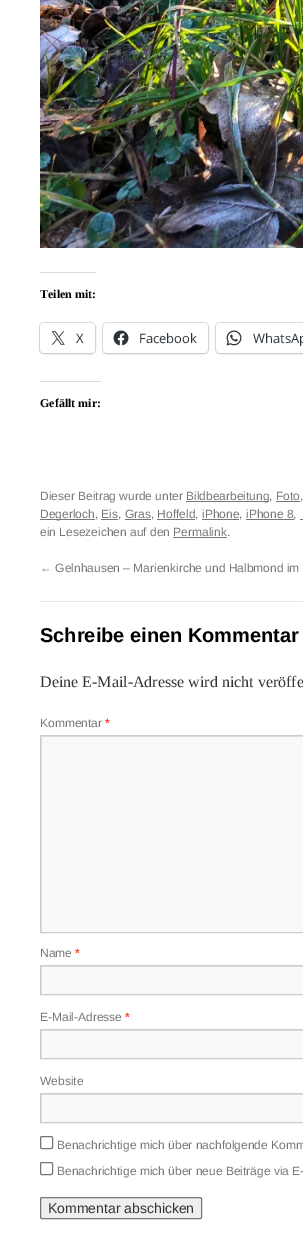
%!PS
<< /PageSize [303 1242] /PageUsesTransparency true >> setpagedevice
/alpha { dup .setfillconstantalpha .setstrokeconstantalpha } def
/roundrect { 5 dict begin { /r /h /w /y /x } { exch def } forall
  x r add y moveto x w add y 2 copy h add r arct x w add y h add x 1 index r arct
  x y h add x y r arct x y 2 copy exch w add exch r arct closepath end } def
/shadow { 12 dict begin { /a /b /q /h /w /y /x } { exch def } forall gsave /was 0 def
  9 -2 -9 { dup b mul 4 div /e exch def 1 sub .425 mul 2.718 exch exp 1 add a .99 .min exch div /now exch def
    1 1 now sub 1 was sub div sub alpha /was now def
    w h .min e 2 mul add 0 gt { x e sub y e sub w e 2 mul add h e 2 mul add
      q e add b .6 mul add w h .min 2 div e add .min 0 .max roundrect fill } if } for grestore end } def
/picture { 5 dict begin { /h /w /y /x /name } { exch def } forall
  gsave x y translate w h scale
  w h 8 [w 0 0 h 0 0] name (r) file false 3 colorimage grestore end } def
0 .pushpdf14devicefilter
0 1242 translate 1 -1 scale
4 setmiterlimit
1 setgray
0 0 303 1242 rectfill
(img1.rgb) 40 0 263 248 picture
0.863 0.863 0.871 setrgbcolor
40 272 56 1 rectfill
/LiberationSerif-Bold [12 0 0 -12 0 0] selectfont
0 setgray
40 298 moveto (Teilen mit:) show
0.878 setgray
39.5 322.5 56 31 4.5 roundrect stroke
0 setgray
40 324 55 30 4 1 0.12 shadow
1 setgray
40 323 55 30 4 roundrect fill
(img2.rgb) 51 331 14 14 picture
/OpenSans-Regular [13 0 0 -13 0 0] selectfont
0.173 0.2 0.22 setrgbcolor
76 343 moveto (X) show
0.878 setgray
102.5 322.5 106 31 4.5 roundrect stroke
0 setgray
103 324 105 30 4 1 0.12 shadow
1 setgray
103 323 105 30 4 roundrect fill
(img3.rgb) 113 330 16 16 picture
0.173 0.2 0.22 setrgbcolor
139 343 moveto (Facebook) show
0.878 setgray
215.5 322.5 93 31 4.5 roundrect stroke
0 setgray
216 324 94 30 4 1 0.12 shadow
1 setgray
216 323 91 30 4 roundrect fill
(img4.rgb) 226 330 16 16 picture
0.173 0.2 0.22 setrgbcolor
253 343 moveto (WhatsAp) show
0.863 0.863 0.871 setrgbcolor
40 381 61 1 rectfill
/LiberationSerif-Bold [12 0 0 -12 0 0] selectfont
0 setgray
40 407 moveto (Gefällt mir:) show
/LiberationSans-Regular [12 0 0 -12 0 0] selectfont
0.467 setgray
40 500 moveto (Dieser Beitrag wurde unter) show
186 501 83 1 rectfill
186 500 moveto (Bildbearbeitung, Foto,) show
276 501 24 1 rectfill
40 519 55 1 rectfill
40 518 moveto (Degerloch, Eis, Gras, Hoffeld, iPhone, iPhone 8,) show
101 519 17 1 rectfill
125 519 26 1 rectfill
157 519 38 1 rectfill
202 519 37 1 rectfill
246 519 48 1 rectfill
300 519 3 1 rectfill
40 536 moveto (ein Lesezeichen auf den Permalink.) show
173 537 54 1 rectfill
40 572 moveto (← Gelnhausen – Marienkirche und Halbmond im) show
0.906 setgray
40 601 263 1 rectfill
/LiberationSans-Bold [20 0 0 -20 0 0] selectfont
0 setgray
40 642 moveto (Schreibe einen Kommentar) show
/LiberationSerif-Regular [16 0 0 -16 0 0] selectfont
0.2 setgray
40 687 moveto (Deine E-Mail-Adresse wird nicht veröffe) show
/LiberationSans-Regular [12 0 0 -12 0 0] selectfont
0.467 setgray
40 727 moveto (Kommentar) show
/LiberationSans-Bold [12 0 0 -12 0 0] selectfont
1 0.294 0.2 setrgbcolor
105 727 moveto (*) show
0.976 setgray
42 737 261 195 rectfill
gsave
41 736 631 196 rectclip
0.878 setgray
newpath -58 637 moveto 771 637 lineto 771 1031 lineto -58 1031 lineto closepath 42 737 moveto 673 737 lineto 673 933 lineto 42 933 lineto closepath eofill
grestore
0.8 setgray
40.5 735.5 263 197 rectstroke
/LiberationSans-Regular [12 0 0 -12 0 0] selectfont
0.467 setgray
40 957 moveto (Name) show
/LiberationSans-Bold [12 0 0 -12 0 0] selectfont
1 0.294 0.2 setrgbcolor
75 957 moveto (*) show
0.976 setgray
42 967 261 27 rectfill
gsave
41 966 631 28 rectclip
0.878 setgray
newpath -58 867 moveto 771 867 lineto 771 1093 lineto -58 1093 lineto closepath 42 967 moveto 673 967 lineto 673 995 lineto 42 995 lineto closepath eofill
grestore
0.8 setgray
40.5 965.5 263 29 rectstroke
/LiberationSans-Regular [12 0 0 -12 0 0] selectfont
0.467 setgray
40 1021 moveto (E-Mail-Adresse) show
/LiberationSans-Bold [12 0 0 -12 0 0] selectfont
1 0.294 0.2 setrgbcolor
125 1021 moveto (*) show
0.976 setgray
42 1031 261 27 rectfill
gsave
41 1030 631 28 rectclip
0.878 setgray
newpath -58 931 moveto 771 931 lineto 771 1157 lineto -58 1157 lineto closepath 42 1031 moveto 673 1031 lineto 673 1059 lineto 42 1059 lineto closepath eofill
grestore
0.8 setgray
40.5 1029.5 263 29 rectstroke
/LiberationSans-Regular [12 0 0 -12 0 0] selectfont
0.467 setgray
40 1085 moveto (Website) show
0.976 setgray
42 1095 261 27 rectfill
gsave
41 1094 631 28 rectclip
0.878 setgray
newpath -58 995 moveto 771 995 lineto 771 1221 lineto -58 1221 lineto closepath 42 1095 moveto 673 1095 lineto 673 1123 lineto 42 1123 lineto closepath eofill
grestore
0.8 setgray
40.5 1093.5 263 29 rectstroke
0.463 setgray
40.5 1136.5 12 12 1.5 roundrect stroke
0.467 setgray
57 1149 moveto (Benachrichtige mich über nachfolgende Komm) show
0.463 setgray
40.5 1162.5 12 12 1.5 roundrect stroke
0.467 setgray
57 1175 moveto (Benachrichtige mich über neue Beiträge via E-) show
0.937 setgray
40.5 1197.5 161 21 1.5 roundrect gsave fill grestore
0.463 setgray
stroke
/LiberationSans-Regular [14 0 0 -14 0 0] selectfont
0.2 setgray
48 1213 moveto (Kommentar abschicken) show
.poppdf14devicefilter showpage
